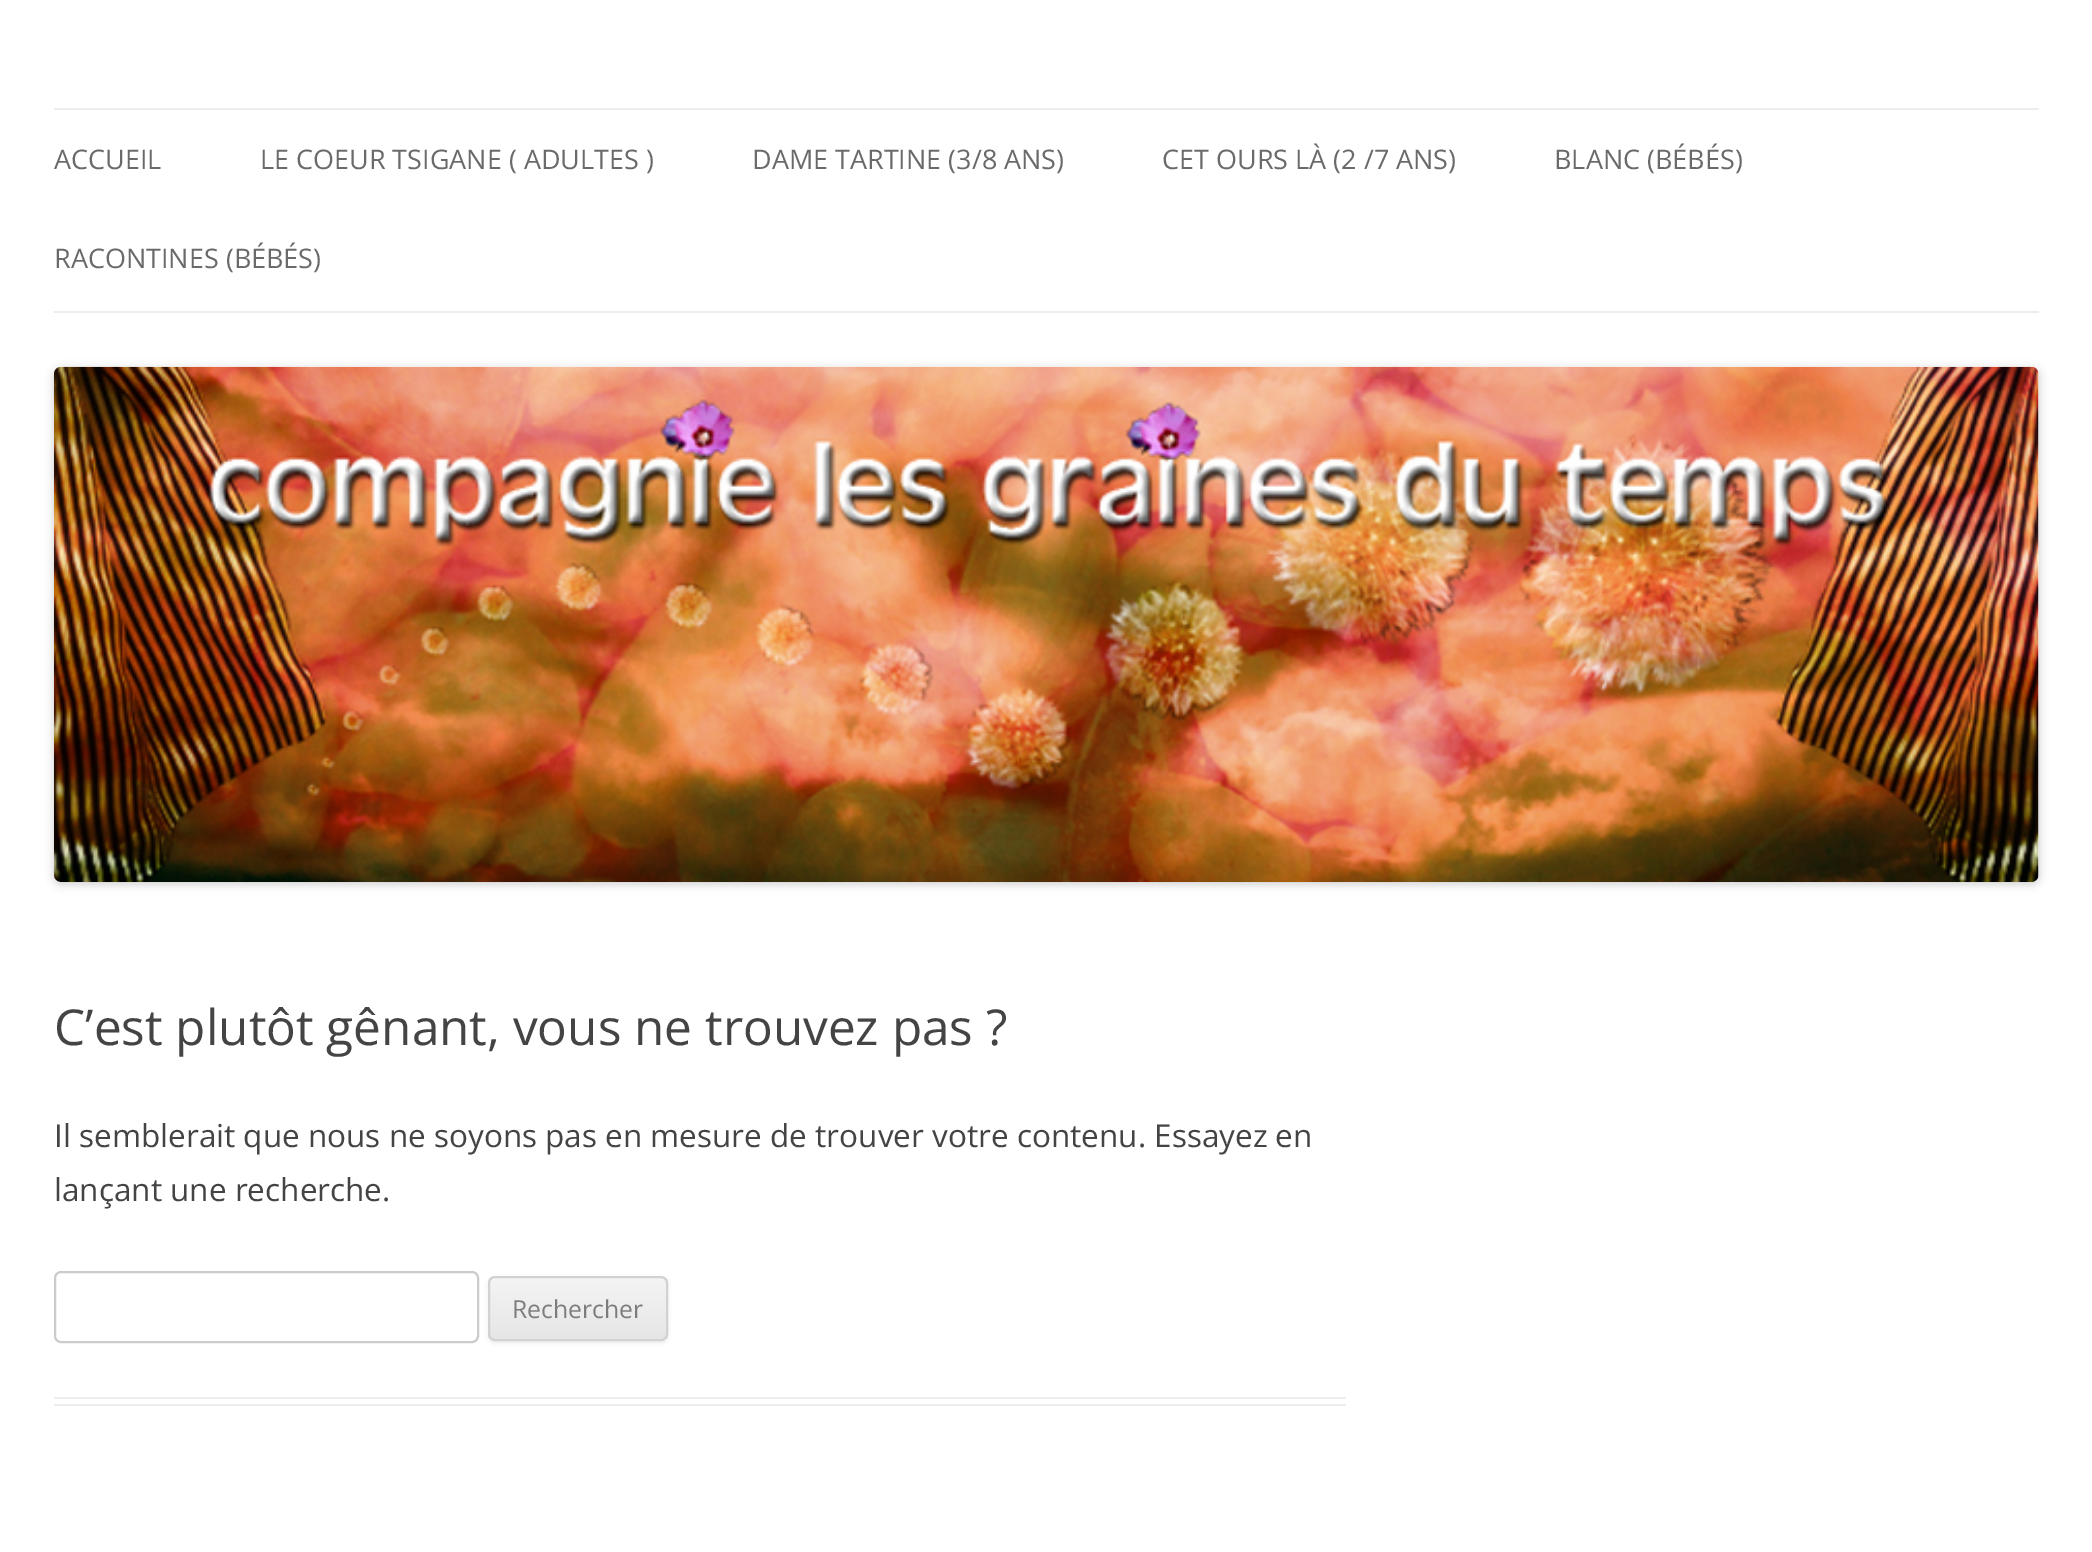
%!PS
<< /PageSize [2092 1552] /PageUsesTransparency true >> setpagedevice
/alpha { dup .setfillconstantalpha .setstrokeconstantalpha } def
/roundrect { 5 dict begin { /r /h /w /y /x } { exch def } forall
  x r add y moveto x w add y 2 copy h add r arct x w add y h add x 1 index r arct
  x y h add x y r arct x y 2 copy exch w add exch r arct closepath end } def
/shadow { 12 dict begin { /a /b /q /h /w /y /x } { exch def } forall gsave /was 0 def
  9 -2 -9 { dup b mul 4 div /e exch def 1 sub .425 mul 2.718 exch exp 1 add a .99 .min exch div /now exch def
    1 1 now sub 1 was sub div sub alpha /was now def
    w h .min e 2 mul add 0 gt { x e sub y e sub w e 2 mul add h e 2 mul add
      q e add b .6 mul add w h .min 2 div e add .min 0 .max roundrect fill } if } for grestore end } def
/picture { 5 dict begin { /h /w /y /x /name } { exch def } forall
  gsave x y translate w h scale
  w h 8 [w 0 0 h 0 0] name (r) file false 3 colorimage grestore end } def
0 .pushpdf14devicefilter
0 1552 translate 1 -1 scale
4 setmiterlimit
1 setgray
0 0 2092 1552 rectfill
0.929 setgray
54 108 1985 2 rectfill
54 311 1985 2 rectfill
/OpenSans-Regular [27 0 0 -27 0 0] selectfont
0.416 setgray
54 169 moveto (ACCUEIL) show
260 169 moveto (LE COEUR TSIGANE \( ADULTES \)) show
752 169 moveto (DAME TARTINE \(3/8 ANS\)) show
1162 169 moveto (CET OURS LÀ \(2 /7 ANS\)) show
1554 169 moveto (BLANC \(BÉBÉS\)) show
54 268 moveto (RACONTINES \(BÉBÉS\)) show
0 setgray
54 369 1985 515 7 4.5 0.2 shadow
(img1.rgb) 54 366 1985 516 picture
0.929 setgray
54 1397 1292 2 rectfill
54 1404 1292 2 rectfill
/OpenSans-Regular [49.5 0 0 -49.5 0 0] selectfont
0.267 setgray
54 1045 moveto (C’est plutôt gênant, vous ne trouvez pas ?) show
/OpenSans-Regular [31.5 0 0 -31.5 0 0] selectfont
54 1147 moveto (Il semblerait que nous ne soyons pas en mesure de trouver votre contenu. Essayez en) show
54 1201 moveto (lançant une recherche.) show
0.8 setgray
2 setlinewidth
55 1272 423 70 6 roundrect stroke
0.251 setgray
488 1278 180 65 7 2 0.1 shadow
gsave
488 1276 180 65 7 roundrect clip newpath
gsave newpath 488 1278 moveto 668 1278 lineto 668 1339 lineto 488 1339 lineto closepath clip newpath
<< /ShadingType 2 /ColorSpace /DeviceRGB /Coords [578 1278 578 1339] /Extend [true true] /Function << /FunctionType 2 /Domain [0 1] /C0 [0.957 0.957 0.957] /C1 [0.902 0.902 0.902] /N 1 >> >> shfill grestore
grestore
0.824 setgray
489 1277 178 63 6 roundrect stroke
/OpenSans-Regular [24.75 0 0 -24.75 0 0] selectfont
0.486 setgray
512 1318 moveto (Rechercher) show
.poppdf14devicefilter showpage
